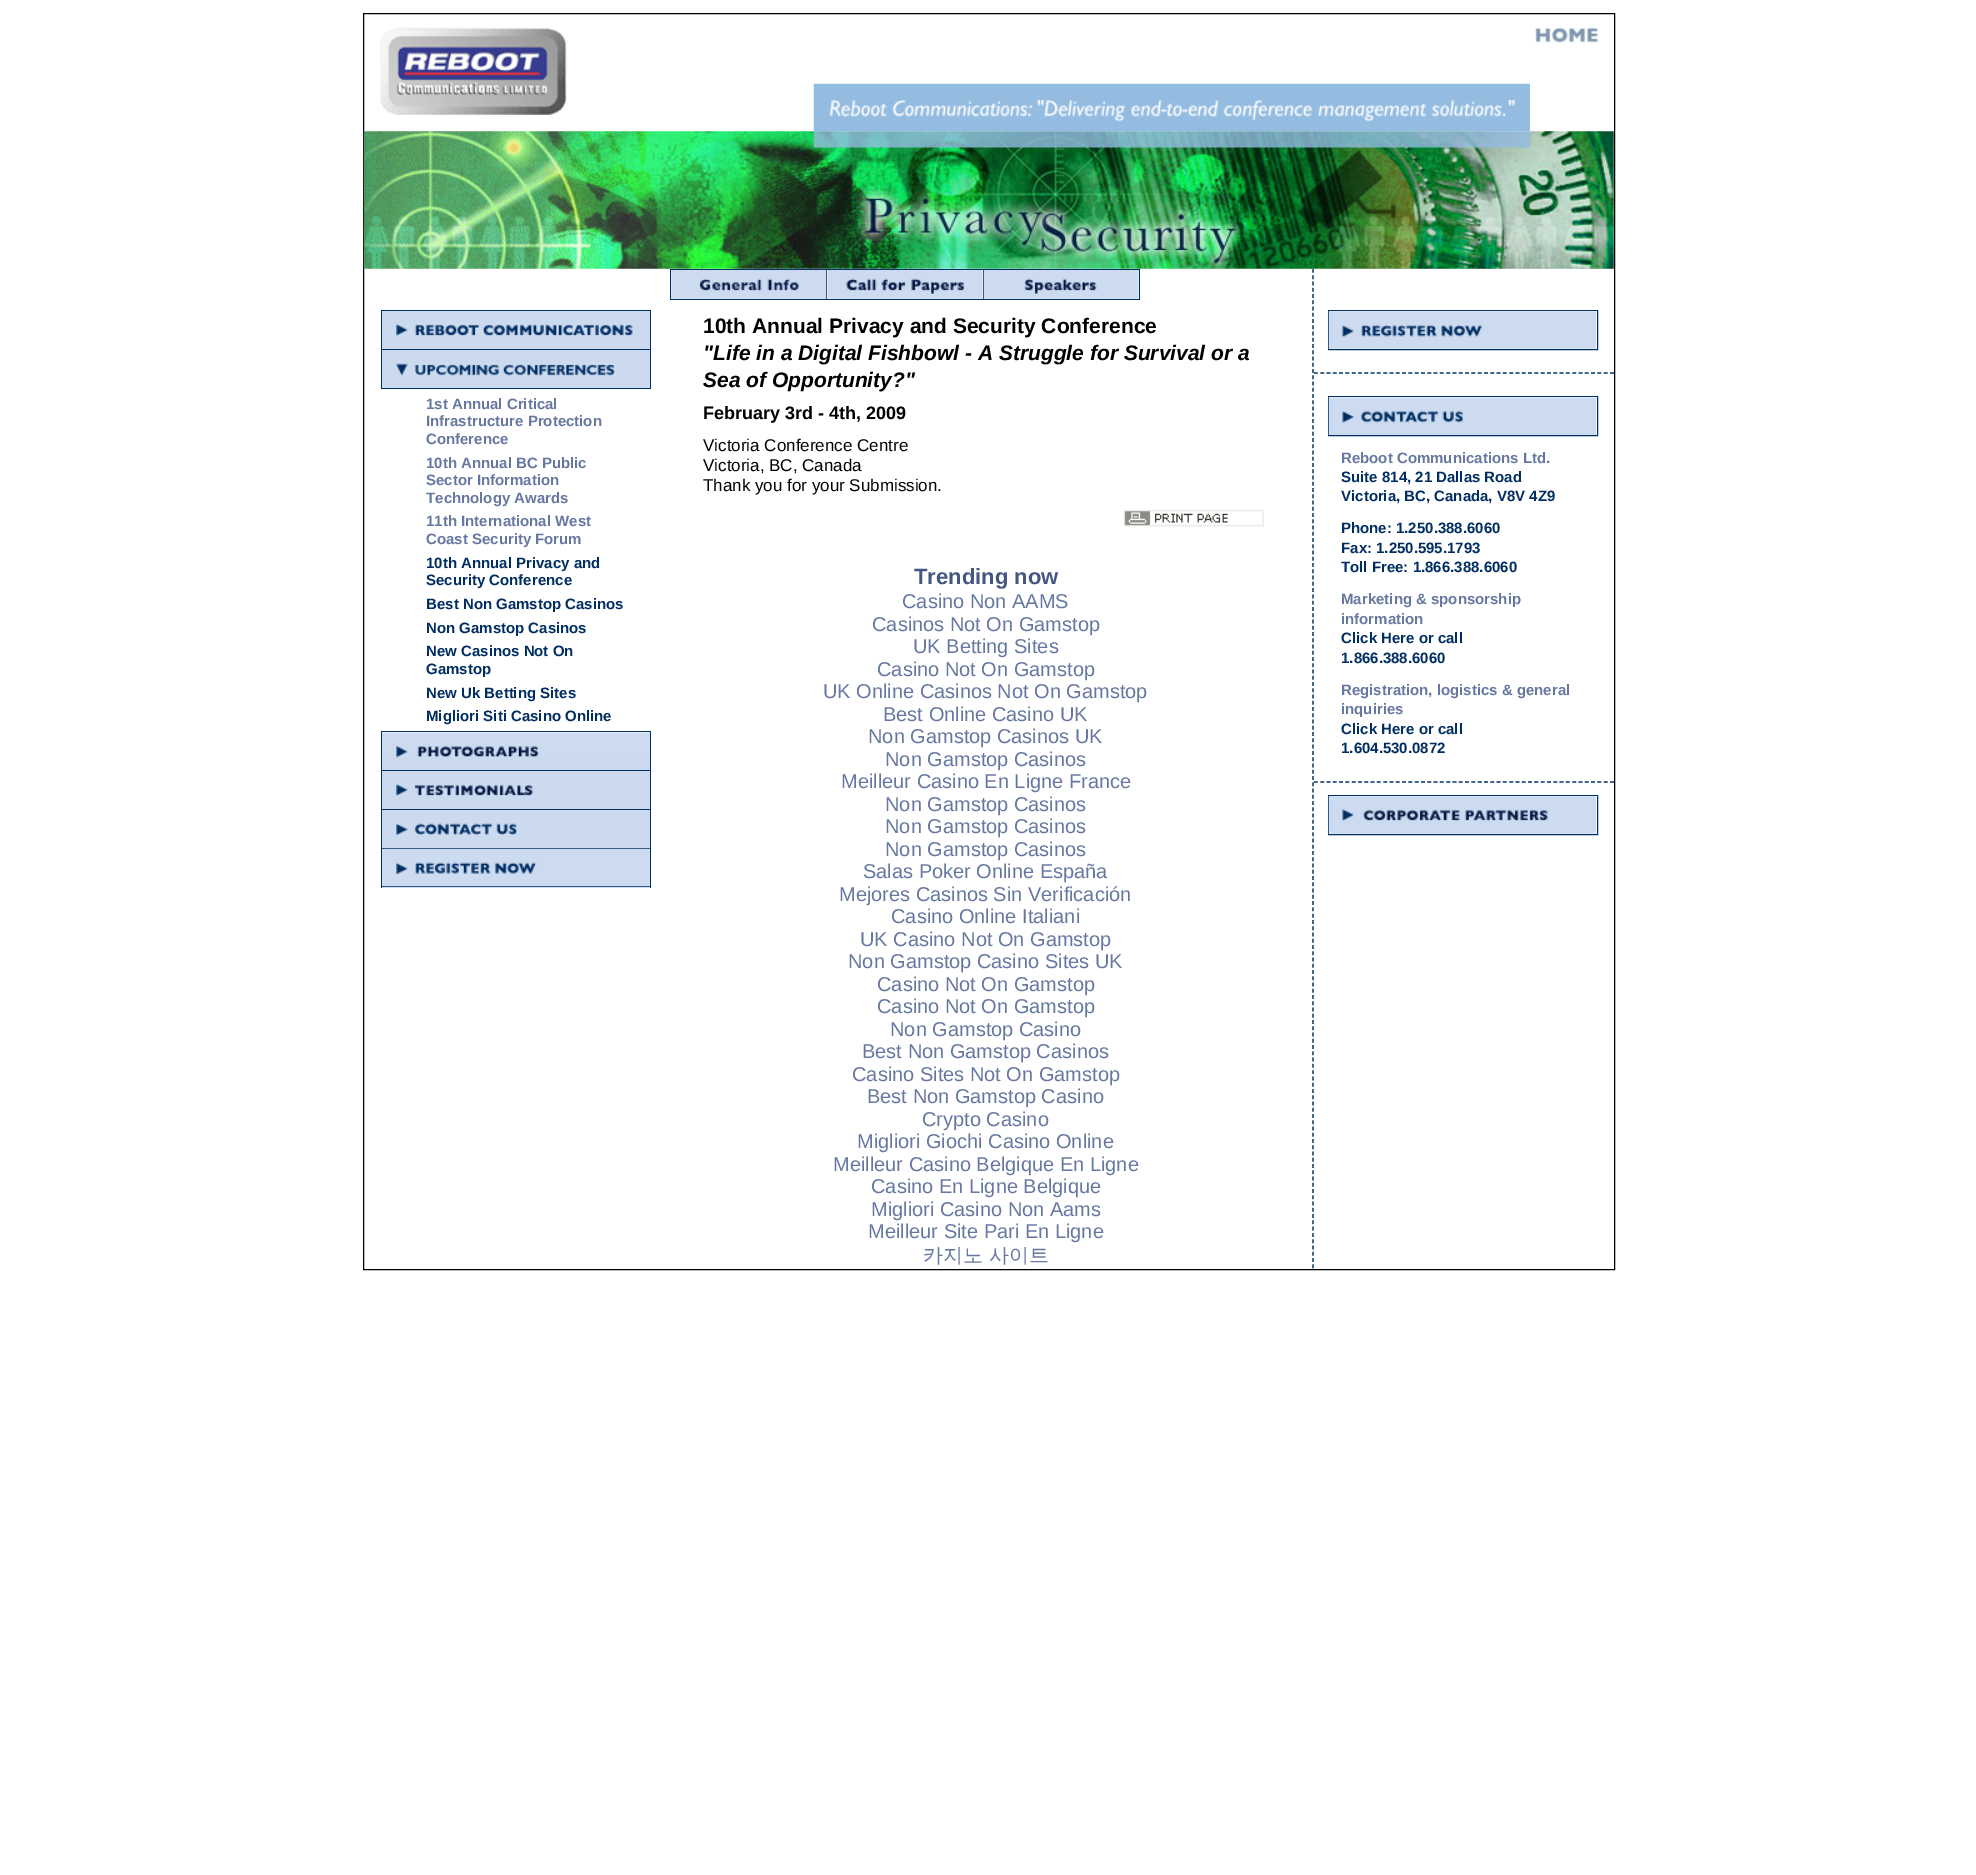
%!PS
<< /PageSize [1976 1875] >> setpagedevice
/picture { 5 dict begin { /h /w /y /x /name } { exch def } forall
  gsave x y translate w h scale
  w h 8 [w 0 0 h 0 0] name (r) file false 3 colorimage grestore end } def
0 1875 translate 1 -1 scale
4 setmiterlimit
1 setgray
0 0 1976 1875 rectfill
0 setgray
363.5 13.5 1251 1256 rectstroke
(img1.rgb) 380 27 187 88 picture
(img2.rgb) 1535 27 64 16 picture
(img3.rgb) 813 83 717 49 picture
(img4.rgb) 363 131 1251 138 picture
0 0.192 0.384 setrgbcolor
670 269 470 1 rectfill
670 299 470 1 rectfill
670 269 1 31 rectfill
826 270 1 29 rectfill
(img5.rgb) 671 270 156 29 picture
983 270 1 29 rectfill
(img6.rgb) 827 270 156 29 picture
1139 270 1 29 rectfill
(img7.rgb) 983 270 156 29 picture
0.8 0.855 0.941 setrgbcolor
382 311 268 38 rectfill
0 0.192 0.384 setrgbcolor
381 310 270 1 rectfill
381 349 270 1 rectfill
650 349 1 40 rectfill
650 310 1 40 rectfill
381 388 270 1 rectfill
381 349 1 40 rectfill
381 310 1 40 rectfill
(img8.rgb) 396 324 237 12 picture
0.8 0.855 0.941 setrgbcolor
382 350 268 38 rectfill
(img9.rgb) 396 363 219 13 picture
/LiberationSans-Bold [15 0 0 -15 0 0] selectfont
0.4 0.471 0.631 setrgbcolor
426 409 moveto (1st Annual Critical) show
426 426 moveto (Infrastructure Protection) show
426 444 moveto (Conference) show
426 468 moveto (10th Annual BC Public) show
426 485 moveto (Sector Information) show
426 503 moveto (Technology Awards) show
426 526 moveto (11th International West) show
426 544 moveto (Coast Security Forum) show
0 0.176 0.384 setrgbcolor
426 568 moveto (10th Annual Privacy and) show
426 585 moveto (Security Conference) show
426 609 moveto (Best Non Gamstop Casinos) show
426 633 moveto (Non Gamstop Casinos) show
426 656 moveto (New Casinos Not On) show
426 674 moveto (Gamstop) show
426 698 moveto (New Uk Betting Sites) show
426 721 moveto (Migliori Siti Casino Online) show
0.8 0.855 0.941 setrgbcolor
382 733 268 37 rectfill
0 0.192 0.384 setrgbcolor
381 731 270 1 rectfill
381 770 270 1 rectfill
381 809 270 1 rectfill
381 848 270 1 rectfill
650 848 1 40 rectfill
650 809 1 40 rectfill
650 770 1 40 rectfill
650 731 1 40 rectfill
0.8 0.855 0.941 setrgbcolor
382 849 268 39 rectfill
0 0.192 0.384 setrgbcolor
381 886 270 1 rectfill
381 848 1 40 rectfill
381 809 1 40 rectfill
381 770 1 40 rectfill
381 731 1 40 rectfill
(img10.rgb) 382 732 268 26 picture
0.8 0.855 0.941 setrgbcolor
382 771 268 38 rectfill
(img11.rgb) 396 784 137 12 picture
382 810 268 38 rectfill
(img12.rgb) 396 823 121 13 picture
(img13.rgb) 382 848 268 39 picture
/LiberationSans-Bold [21 0 0 -21 0 0] selectfont
0 setgray
703 333 moveto (10th Annual Privacy and Security Conference) show
/LiberationSans-BoldItalic [21 0 0 -21 0 0] selectfont
703 360 moveto ("Life in a Digital Fishbowl - A Struggle for Survival or a) show
703 387 moveto (Sea of Opportunity?") show
/LiberationSans-Bold [18 0 0 -18 0 0] selectfont
703 419 moveto (February 3rd - 4th, 2009) show
/LiberationSans-Regular [17 0 0 -17 0 0] selectfont
703 451 moveto (Victoria Conference Centre) show
703 471 moveto (Victoria, BC, Canada) show
703 491 moveto (Thank you for your Submission.) show
(img14.rgb) 1123 510 141 17 picture
/LiberationSans-Bold [22 0 0 -22 0 0] selectfont
0.267 0.341 0.514 setrgbcolor
914 584 moveto (Trending now) show
/LiberationSans-Regular [20 0 0 -20 0 0] selectfont
0.4 0.471 0.631 setrgbcolor
902 608 moveto (Casino Non AAMS) show
872 631 moveto (Casinos Not On Gamstop) show
913 653 moveto (UK Betting Sites) show
877 676 moveto (Casino Not On Gamstop) show
823 698 moveto (UK Online Casinos Not On Gamstop) show
883 721 moveto (Best Online Casino UK) show
868 743 moveto (Non Gamstop Casinos UK) show
885 766 moveto (Non Gamstop Casinos) show
841 788 moveto (Meilleur Casino En Ligne France) show
885 811 moveto (Non Gamstop Casinos) show
885 833 moveto (Non Gamstop Casinos) show
885 856 moveto (Non Gamstop Casinos) show
863 878 moveto (Salas Poker Online España) show
839 901 moveto (Mejores Casinos Sin Verificación) show
891 923 moveto (Casino Online Italiani) show
860 946 moveto (UK Casino Not On Gamstop) show
848 968 moveto (Non Gamstop Casino Sites UK) show
877 991 moveto (Casino Not On Gamstop) show
877 1013 moveto (Casino Not On Gamstop) show
890 1036 moveto (Non Gamstop Casino) show
862 1058 moveto (Best Non Gamstop Casinos) show
852 1081 moveto (Casino Sites Not On Gamstop) show
867 1103 moveto (Best Non Gamstop Casino) show
922 1126 moveto (Crypto Casino) show
857 1148 moveto (Migliori Giochi Casino Online) show
833 1171 moveto (Meilleur Casino Belgique En Ligne) show
871 1193 moveto (Casino En Ligne Belgique) show
871 1216 moveto (Migliori Casino Non Aams) show
868 1238 moveto (Meilleur Site Pari En Ligne) show
/WenQuanYiZenHei-Medium [20 0 0 -20 0 0] selectfont
923 1262 moveto (카지노 사이트) show
0 0.192 0.384 setrgbcolor
1.2 setlinewidth
[3.75 2.51] 0 setdash
newpath 1313 269 moveto 1313 1269 lineto stroke
[3.75 2.55] 0 setdash
newpath 1314 373 moveto 1614 373 lineto stroke
1 setlinewidth
[] 0 setdash
1328.5 310.5 269 39 rectstroke
(img15.rgb) 1328 311 269 38 picture
1.2 setlinewidth
[3.75 2.55] 0 setdash
newpath 1314 782 moveto 1614 782 lineto stroke
1 setlinewidth
[] 0 setdash
1328.5 396.5 269 39 rectstroke
(img16.rgb) 1328 397 269 38 picture
/LiberationSans-Bold [15 0 0 -15 0 0] selectfont
0.4 0.471 0.631 setrgbcolor
1341 463 moveto (Reboot Communications Ltd.) show
0 0.176 0.384 setrgbcolor
1341 482 moveto (Suite 814, 21 Dallas Road) show
1341 501 moveto (Victoria, BC, Canada, V8V 4Z9) show
1341 533 moveto (Phone: 1.250.388.6060) show
1341 553 moveto (Fax: 1.250.595.1793) show
gsave
1341 449 263 310 rectclip
1341 572 moveto (Toll Free: 1.866.388.6060) show
grestore
0.4 0.471 0.631 setrgbcolor
1341 604 moveto (Marketing & sponsorship) show
1341 624 moveto (information) show
0 0.176 0.384 setrgbcolor
1341 643 moveto (Click Here or call) show
1341 663 moveto (1.866.388.6060) show
0.4 0.471 0.631 setrgbcolor
1341 695 moveto (Registration, logistics & general) show
1341 714 moveto (inquiries) show
0 0.176 0.384 setrgbcolor
1341 734 moveto (Click Here or call) show
1341 753 moveto (1.604.530.0872) show
0 0.192 0.384 setrgbcolor
1328.5 795.5 269 39 rectstroke
(img17.rgb) 1328 796 269 38 picture
showpage
